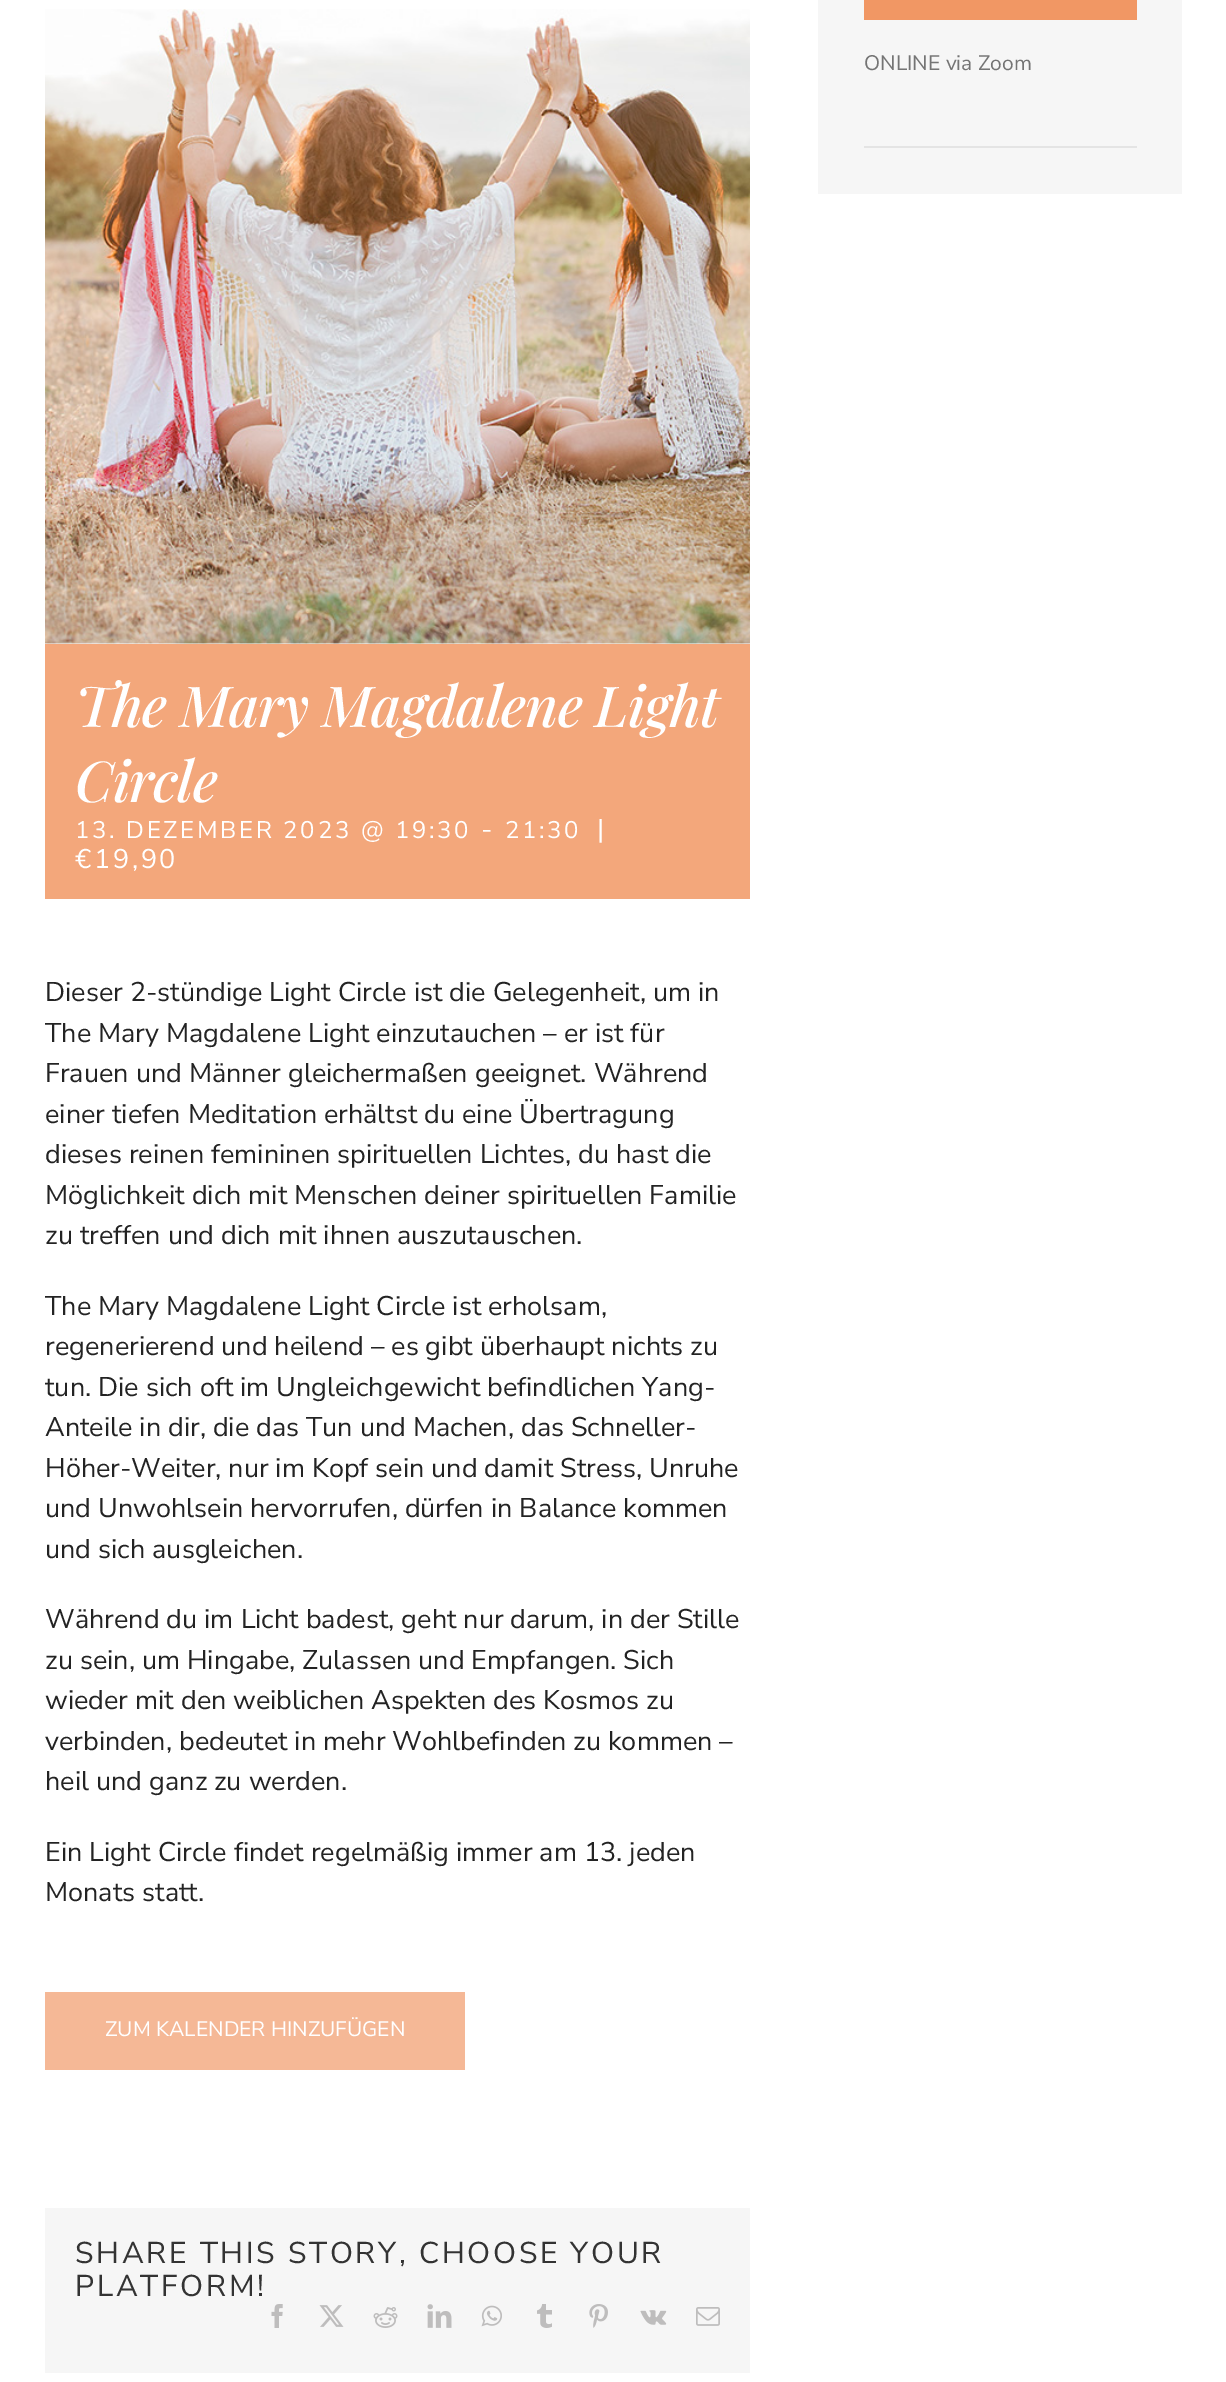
%!PS
<< /PageSize [1226 2382] >> setpagedevice
/picture { 5 dict begin { /h /w /y /x /name } { exch def } forall
  gsave x y translate w h scale
  w h 8 [w 0 0 h 0 0] name (r) file false 3 colorimage grestore end } def
0 2382 translate 1 -1 scale
4 setmiterlimit
1 setgray
0 0 1226 2382 rectfill
0.965 setgray
818 0 364 194 rectfill
0.945 0.592 0.392 setrgbcolor
864 0 273 20 rectfill
/NunitoSans-Regular [21 0 0 -21 0 0] selectfont
0.455 setgray
864 70 moveto (ONLINE via Zoom) show
0.894 setgray
864 146 273 2 rectfill
(img1.rgb) 45 9 705 635 picture
0.953 0.655 0.482 setrgbcolor
45 644 705 255 rectfill
/PlayfairDisplay-MediumItalic [56.6 0 0 -56.6 0 0] selectfont
1 setgray
75 727 moveto -0.85 0 (The Mary Magdalene Light) ashow
75 802 moveto -0.85 0 (Circle) ashow
/NunitoSans-Regular [24 0 0 -24 0 0] selectfont
75 838 moveto 2.7 0 (13. DEZEMBER 2023 @ 19:30) ashow
/NunitoSans-Regular [27 0 0 -27 0 0] selectfont
481 838 moveto 2.7 0 (-) ashow
/NunitoSans-Regular [24 0 0 -24 0 0] selectfont
505 838 moveto 2.7 0 (21:30) ashow
/NunitoSans-Regular [27 0 0 -27 0 0] selectfont
597 838 moveto 2.7 0 (|) ashow
75 868 moveto 2.7 0 (€19,90) ashow
0.137 setgray
45 1001 moveto (Dieser 2-stündige Light Circle ist die Gelegenheit, um in) show
45 1042 moveto (The Mary Magdalene Light einzutauchen – er ist für) show
45 1082 moveto (Frauen und Männer gleichermaßen geeignet. Während) show
45 1123 moveto (einer tiefen Meditation erhältst du eine Übertragung) show
45 1163 moveto (dieses reinen femininen spirituellen Lichtes, du hast die) show
45 1204 moveto (Möglichkeit dich mit Menschen deiner spirituellen Familie) show
45 1244 moveto (zu treffen und dich mit ihnen auszutauschen.) show
45 1315 moveto (The Mary Magdalene Light Circle ist erholsam,) show
45 1355 moveto (regenerierend und heilend – es gibt überhaupt nichts zu) show
45 1396 moveto (tun. Die sich oft im Ungleichgewicht befindlichen Yang-) show
45 1436 moveto (Anteile in dir, die das Tun und Machen, das Schneller-) show
45 1477 moveto (Höher-Weiter, nur im Kopf sein und damit Stress, Unruhe) show
45 1517 moveto (und Unwohlsein hervorrufen, dürfen in Balance kommen) show
45 1558 moveto (und sich ausgleichen.) show
45 1628 moveto (Während du im Licht badest, geht nur darum, in der Stille) show
45 1669 moveto (zu sein, um Hingabe, Zulassen und Empfangen. Sich) show
45 1709 moveto (wieder mit den weiblichen Aspekten des Kosmos zu) show
45 1750 moveto (verbinden, bedeutet in mehr Wohlbefinden zu kommen –) show
45 1790 moveto (heil und ganz zu werden.) show
45 1861 moveto (Ein Light Circle findet regelmäßig immer am 13. jeden) show
45 1901 moveto (Monats statt.) show
0.961 0.722 0.588 setrgbcolor
45 1992 420 78 rectfill
/NunitoSans-Regular [21 0 0 -21 0 0] selectfont
1 setgray
105 2036 moveto (ZUM KALENDER HINZUFÜGEN) show
0.965 setgray
45 2208 705 165 rectfill
/NunitoSans-Regular [30 0 0 -30 0 0] selectfont
0.2 setgray
75 2263 moveto 2.7 0 (SHARE THIS STORY, CHOOSE YOUR) ashow
75 2296 moveto 2.7 0 (PLATFORM!) ashow
(img2.rgb) 271 2304 12 24 picture
(img3.rgb) 319 2305 25 22 picture
(img4.rgb) 373 2307 25 21 picture
(img5.rgb) 427 2304 25 24 picture
(img6.rgb) 481 2305 21 22 picture
(img7.rgb) 537 2304 15 24 picture
(img8.rgb) 589 2304 19 24 picture
(img9.rgb) 640 2310 27 15 picture
(img10.rgb) 696 2307 24 19 picture
showpage
